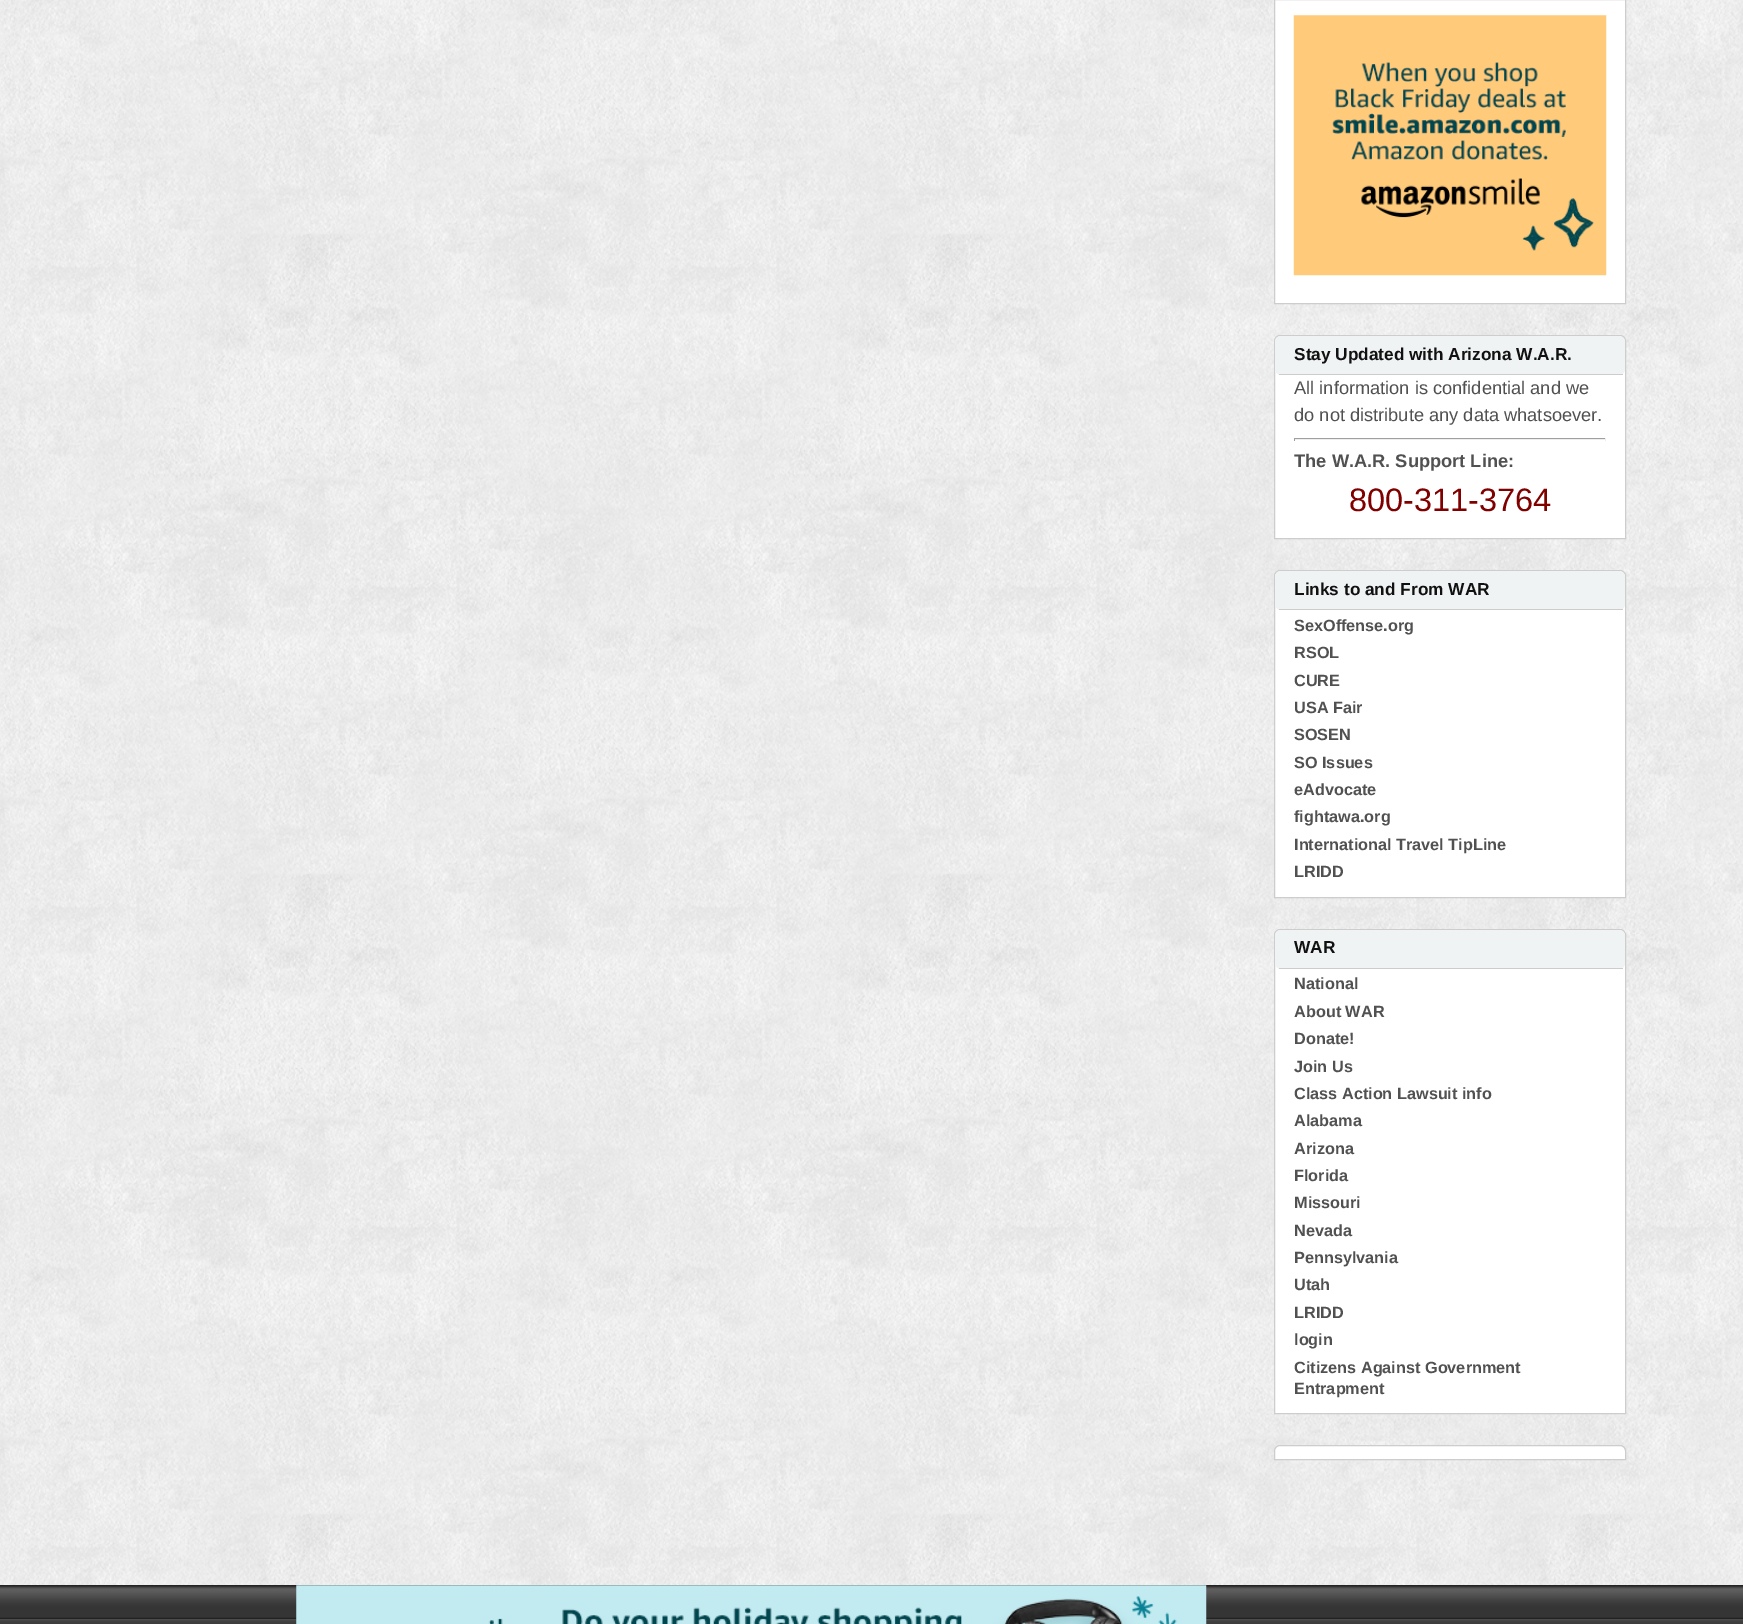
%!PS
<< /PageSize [1743 1624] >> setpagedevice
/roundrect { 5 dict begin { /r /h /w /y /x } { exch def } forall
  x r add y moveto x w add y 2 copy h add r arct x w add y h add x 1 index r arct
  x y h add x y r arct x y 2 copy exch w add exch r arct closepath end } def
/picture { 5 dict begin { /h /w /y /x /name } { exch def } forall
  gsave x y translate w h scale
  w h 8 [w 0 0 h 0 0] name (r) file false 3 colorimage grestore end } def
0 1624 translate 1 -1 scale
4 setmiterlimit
1 setgray
0 0 1743 1624 rectfill
(img1.rgb) 0 0 1743 1585 picture
newpath 1274.5 -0.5 moveto 1625.5 -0.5 lineto 1625.5 303.5 lineto 1274.5 303.5 lineto closepath gsave fill grestore
0.804 setgray
stroke
(img2.rgb) 1293 15 314 261 picture
1 setgray
newpath 1280 335.5 moveto 1620 335.5 lineto 1623 335.5 1625.5 338 1625.5 341 curveto 1625.5 538.5 lineto 1274.5 538.5 lineto 1274.5 341 lineto 1274.5 338 1277 335.5 1280 335.5 curveto closepath gsave fill grestore
0.804 setgray
stroke
0.941 0.953 0.957 setrgbcolor
1275 336 350 39 6 roundrect fill
0.8 setgray
1279 374 344 1 rectfill
/LiberationSans-Bold [17.25 0 0 -17.25 0 0] selectfont
0.067 setgray
1294 360 moveto (Stay Updated with Arizona W.A.R.) show
/LiberationSans-Regular [18.25 0 0 -18.25 0 0] selectfont
0.318 setgray
1294 394 moveto (All information is confidential and we) show
1294 421 moveto (do not distribute any data whatsoever.) show
0.624 setgray
1294 438 312 1 rectfill
0.933 setgray
1605 438 1 3 rectfill
1294 439 312 1 rectfill
0.624 setgray
1294 438 1 3 rectfill
/LiberationSans-Bold [18.25 0 0 -18.25 0 0] selectfont
0.318 setgray
1294 467 moveto (The W.A.R. Support Line:) show
/LiberationSans-Regular [32.5 0 0 -32.5 0 0] selectfont
0.502 0 0 setrgbcolor
1349 511 moveto (800-311-3764) show
1 setgray
newpath 1280 570.5 moveto 1620 570.5 lineto 1623 570.5 1625.5 573 1625.5 576 curveto 1625.5 897.5 lineto 1274.5 897.5 lineto 1274.5 576 lineto 1274.5 573 1277 570.5 1280 570.5 curveto closepath gsave fill grestore
0.804 setgray
stroke
0.941 0.953 0.957 setrgbcolor
1275 571 350 39 6 roundrect fill
0.8 setgray
1279 609 344 1 rectfill
/LiberationSans-Bold [17.25 0 0 -17.25 0 0] selectfont
0.067 setgray
1294 595 moveto (Links to and From WAR) show
/LiberationSans-Bold [16.25 0 0 -16.25 0 0] selectfont
0.318 setgray
1294 631 moveto (SexOffense.org) show
1294 658 moveto (RSOL) show
1294 686 moveto (CURE) show
1294 713 moveto (USA Fair) show
1294 740 moveto (SOSEN) show
1294 768 moveto (SO Issues) show
1294 795 moveto (eAdvocate) show
1294 822 moveto (fightawa.org) show
1294 850 moveto (International Travel TipLine) show
1294 877 moveto (LRIDD) show
1 setgray
newpath 1280 929.5 moveto 1620 929.5 lineto 1623 929.5 1625.5 932 1625.5 935 curveto 1625.5 1413.5 lineto 1274.5 1413.5 lineto 1274.5 935 lineto 1274.5 932 1277 929.5 1280 929.5 curveto closepath gsave fill grestore
0.804 setgray
stroke
0.941 0.953 0.957 setrgbcolor
1275 930 350 39 6 roundrect fill
0.8 setgray
1279 968 344 1 rectfill
/LiberationSans-Bold [17.25 0 0 -17.25 0 0] selectfont
0.067 setgray
1294 953 moveto (WAR) show
/LiberationSans-Bold [16.25 0 0 -16.25 0 0] selectfont
0.318 setgray
1294 989 moveto (National) show
1294 1017 moveto (About WAR) show
1294 1044 moveto (Donate!) show
1294 1072 moveto (Join Us) show
1294 1099 moveto (Class Action Lawsuit info) show
1294 1126 moveto (Alabama) show
1294 1154 moveto (Arizona) show
1294 1181 moveto (Florida) show
1294 1208 moveto (Missouri) show
1294 1236 moveto (Nevada) show
1294 1263 moveto (Pennsylvania) show
1294 1290 moveto (Utah) show
1294 1318 moveto (LRIDD) show
1294 1345 moveto (login) show
1294 1373 moveto (Citizens Against Government) show
1294 1394 moveto (Entrapment) show
1 setgray
newpath 1280 1445.5 moveto 1620 1445.5 lineto 1623 1445.5 1625.5 1448 1625.5 1451 curveto 1625.5 1459.5 lineto 1274.5 1459.5 lineto 1274.5 1451 lineto 1274.5 1448 1277 1445.5 1280 1445.5 curveto closepath gsave fill grestore
0.804 setgray
stroke
0.141 setgray
0 1585 1743 1 rectfill
(img3.rgb) 0 1586 1743 38 picture
(img4.rgb) 296 1585 911 39 picture
showpage
